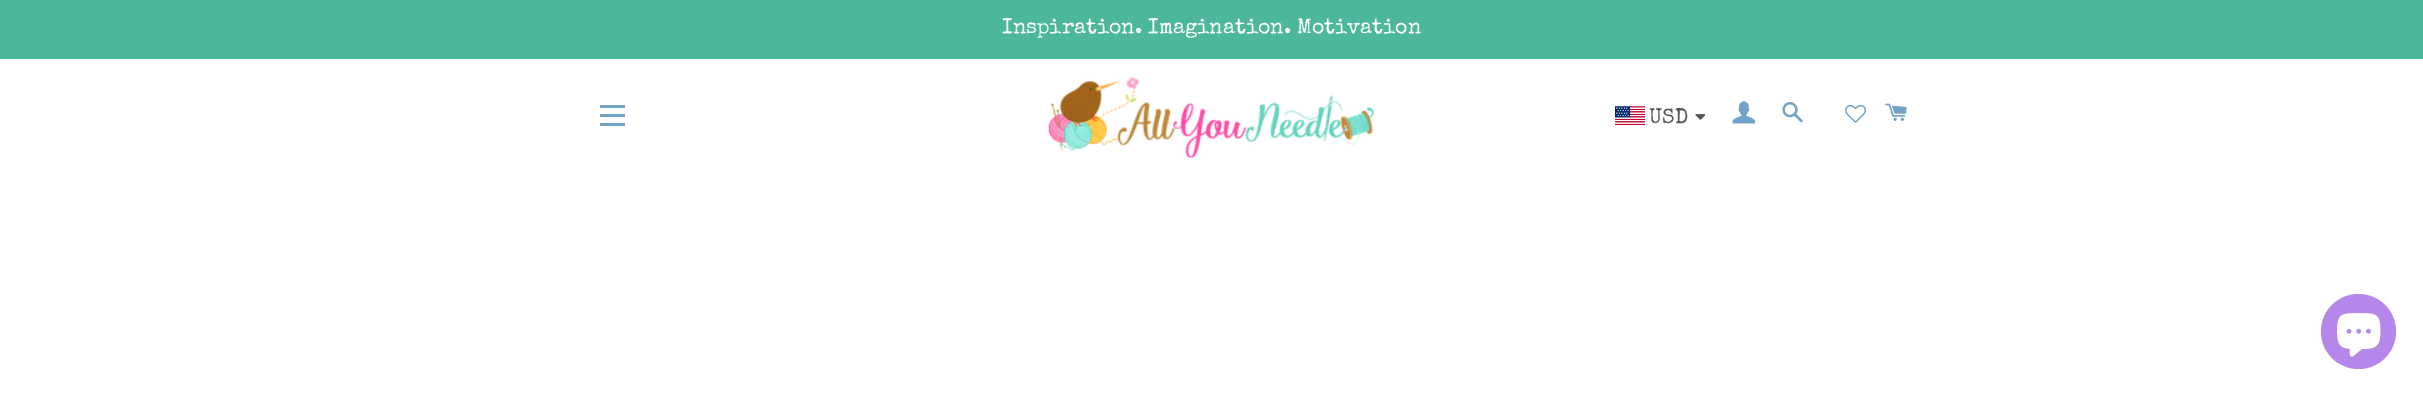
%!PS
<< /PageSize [2423 394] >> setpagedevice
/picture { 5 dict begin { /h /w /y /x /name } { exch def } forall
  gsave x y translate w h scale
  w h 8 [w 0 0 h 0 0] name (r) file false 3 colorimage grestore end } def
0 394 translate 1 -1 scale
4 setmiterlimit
1 setgray
0 0 2423 394 rectfill
0.302 0.718 0.612 setrgbcolor
0 0 2423 59 rectfill
/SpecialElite-Regular [21.25 0 0 -21.25 0 0] selectfont
1 setgray
1002 33 moveto (Inspiration. Imagination. Motivation) show
0.443 0.639 0.78 setrgbcolor
600 105 25 3 rectfill
600 114 25 3 rectfill
600 123 25 3 rectfill
(img1.rgb) 1048 77 326 81 picture
(img2.rgb) 1615 106 30 19 picture
0.337 setgray
1649 123 moveto (USD) show
(img3.rgb) 1695 114 10 6 picture
(img4.rgb) 1732 101 24 23 picture
(img5.rgb) 1782 102 21 21 picture
(img6.rgb) 1845 104 21 19 picture
(img7.rgb) 1885 103 22 18 picture
0.714 0.529 0.918 setrgbcolor
newpath 2358.5 331.5 37.5 0 360 arc closepath fill
(img8.rgb) 2337 313 44 44 picture
showpage
